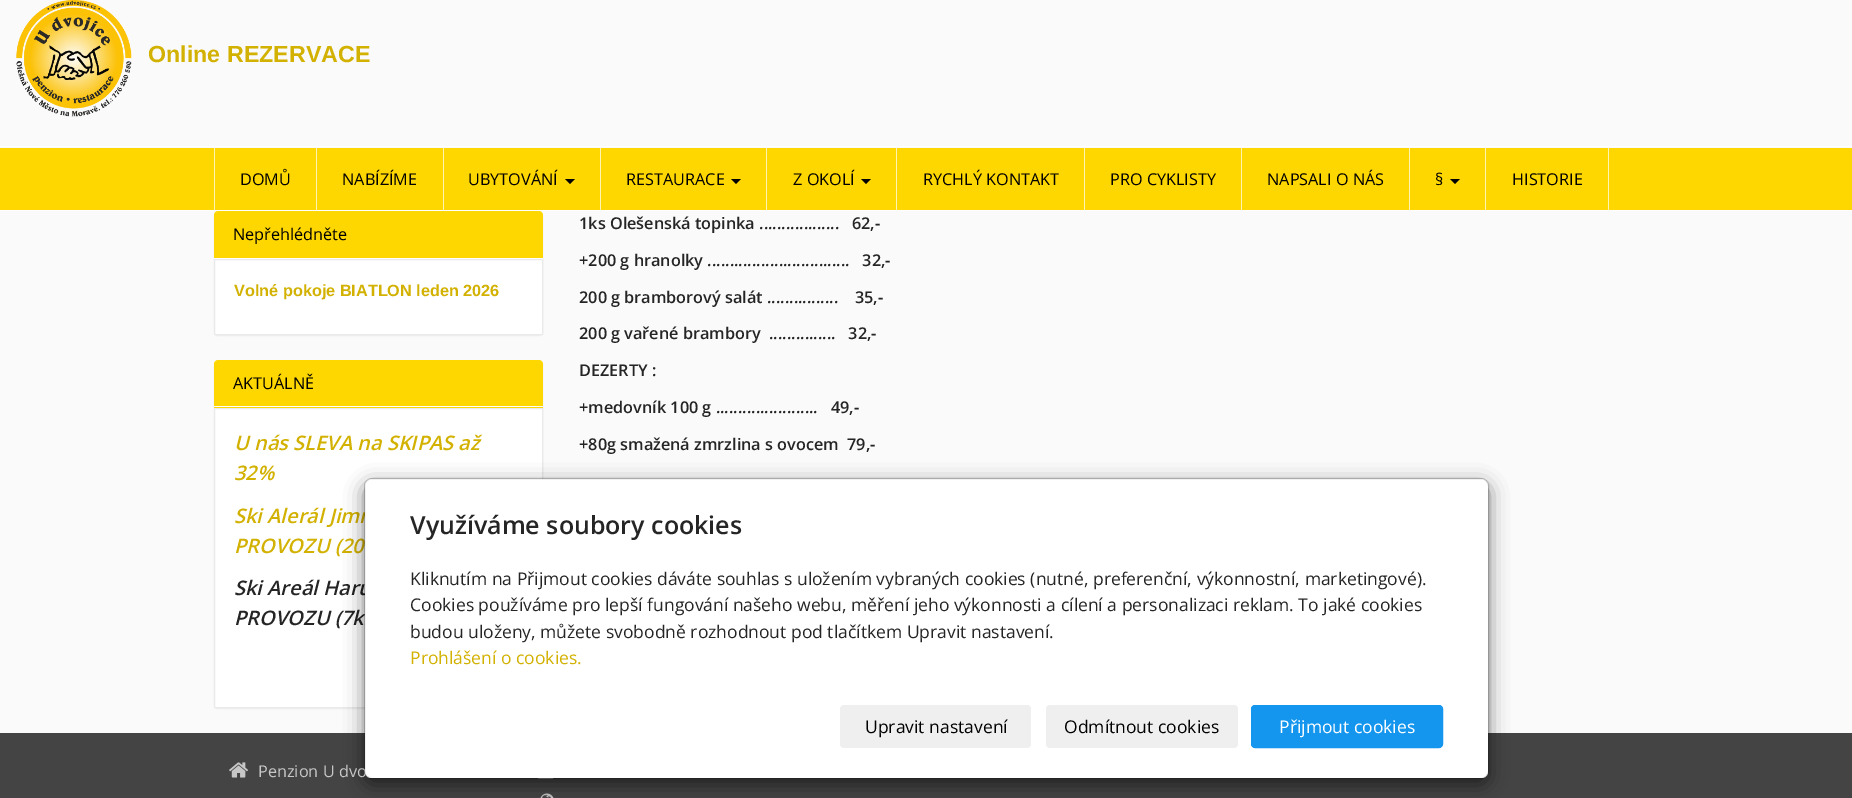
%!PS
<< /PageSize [1852 798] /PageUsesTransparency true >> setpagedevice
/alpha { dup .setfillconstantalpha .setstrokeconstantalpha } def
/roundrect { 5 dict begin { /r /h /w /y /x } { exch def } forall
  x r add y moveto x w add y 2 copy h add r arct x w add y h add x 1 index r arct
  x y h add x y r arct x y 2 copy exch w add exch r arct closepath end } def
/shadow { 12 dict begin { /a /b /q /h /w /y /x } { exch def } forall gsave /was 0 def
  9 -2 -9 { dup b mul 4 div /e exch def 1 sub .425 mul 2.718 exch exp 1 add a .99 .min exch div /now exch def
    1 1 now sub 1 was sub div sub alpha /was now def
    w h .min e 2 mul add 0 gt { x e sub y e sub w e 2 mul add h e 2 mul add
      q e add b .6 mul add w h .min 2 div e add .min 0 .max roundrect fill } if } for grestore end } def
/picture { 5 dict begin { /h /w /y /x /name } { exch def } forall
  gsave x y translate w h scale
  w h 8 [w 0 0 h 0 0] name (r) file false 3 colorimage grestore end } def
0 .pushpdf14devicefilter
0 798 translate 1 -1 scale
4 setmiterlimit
0.98 setgray
0 0 1852 798 rectfill
(img1.rgb) 16 0 116 117 picture
/LiberationSans-Bold [23.25 0 0 -23.25 0 0] selectfont
0.824 0.694 0 setrgbcolor
148 62 moveto (Online REZERVACE) show
1 0.843 0 setrgbcolor
0 148 1852 62 rectfill
1 setgray
0 146 1852 1 rectfill
0 setgray
214 213 329 123 4 0.5 0.05 shadow
1 setgray
0 210 1852 1 rectfill
1 0.953 0.698 setrgbcolor
316 148 1 62 rectfill
214 148 1 62 rectfill
/OpenSans-Regular [16.25 0 0 -16.25 0 0] selectfont
0 setgray
240 185 moveto (DOMŮ) show
1 0.953 0.698 setrgbcolor
443 148 1 62 rectfill
0 setgray
342 185 moveto (NABÍZÍME) show
1 0.953 0.698 setrgbcolor
600 148 1 62 rectfill
0 setgray
468 185 moveto (UBYTOVÁNÍ) show
newpath 565 179 moveto 575 179 lineto 570 184 lineto closepath fill
1 0.953 0.698 setrgbcolor
766 148 1 62 rectfill
0 setgray
626 185 moveto (RESTAURACE) show
newpath 731 179 moveto 741 179 lineto 736 184 lineto closepath fill
1 0.953 0.698 setrgbcolor
896 148 1 62 rectfill
0 setgray
793 185 moveto (Z OKOLÍ) show
newpath 861 179 moveto 871 179 lineto 866 184 lineto closepath fill
1 0.953 0.698 setrgbcolor
1084 148 1 62 rectfill
0 setgray
923 185 moveto (RYCHLÝ KONTAKT) show
1 0.953 0.698 setrgbcolor
1241 148 1 62 rectfill
0 setgray
1110 185 moveto (PRO CYKLISTY) show
1 0.953 0.698 setrgbcolor
1409 148 1 62 rectfill
0 setgray
1267 185 moveto (NAPSALI O NÁS) show
1 0.953 0.698 setrgbcolor
1485 148 1 62 rectfill
0 setgray
1435 185 moveto (§) show
newpath 1450 179 moveto 1460 179 lineto 1455 184 lineto closepath fill
1 0.953 0.698 setrgbcolor
1608 148 1 62 rectfill
0 setgray
1512 185 moveto (HISTORIE) show
1 setgray
214 211 329 124 4 roundrect fill
1 0.843 0 setrgbcolor
newpath 218 211 moveto 539 211 lineto 541 211 543 213 543 215 curveto 543 259 lineto 214 259 lineto 214 215 lineto 214 213 216 211 218 211 curveto closepath fill
1 setgray
214 258 329 1 rectfill
0 setgray
233 240 moveto (Nepřehlédněte) show
0.918 setgray
214.5 259.5 328 75 rectstroke
/LiberationSans-Bold [16.25 0 0 -16.25 0 0] selectfont
0.824 0.694 0 setrgbcolor
234 296 moveto (Volné pokoje BIATLON leden 2026) show
0 setgray
214 361 329 348 4 0.5 0.05 shadow
1 setgray
214 360 329 348 4 roundrect fill
1 0.843 0 setrgbcolor
newpath 218 360 moveto 539 360 lineto 541 360 543 362 543 364 curveto 543 408 lineto 214 408 lineto 214 364 lineto 214 362 216 360 218 360 curveto closepath fill
1 setgray
214 406 329 1 rectfill
/OpenSans-Regular [16.25 0 0 -16.25 0 0] selectfont
0 setgray
233 389 moveto (AKTUÁLNĚ) show
0.918 setgray
214.5 408.5 328 299 rectstroke
/OpenSans-SemiBoldItalic [20 0 0 -20 0 0] selectfont
0.824 0.694 0 setrgbcolor
234 450 moveto (U nás SLEVA na SKIPAS až) show
234 480 moveto (32%) show
234 523 moveto (Ski Alerál Jimr) show
234 553 moveto (PROVOZU \(20) show
0.145 setgray
234 595 moveto (Ski Areál Haru) show
234 625 moveto (PROVOZU \(7k) show
/OpenSans-SemiBold [16.25 0 0 -16.25 0 0] selectfont
579 229 moveto (1ks Olešenská topinka ..................   62,-) show
579 266 moveto (+200 g hranolky ................................   32,-) show
579 303 moveto (200 g bramborový salát ................    35,-) show
579 339 moveto (200 g vařené brambory  ...............   32,-) show
579 376 moveto (DEZERTY :) show
579 413 moveto (+medovník 100 g .......................   49,-) show
579 450 moveto (+80g smažená zmrzlina s ovocem  79,-) show
0.267 setgray
0 733 1852 65 rectfill
(img3.rgb) 537 778 17 1 picture
(img4.rgb) 540 793 14 5 picture
0 setgray
364 484 1125 301 8 9.5 0.5 shadow
/OpenSans-Regular [16.25 0 0 -16.25 0 0] selectfont
0.78 setgray
258 777 moveto (Penzion U dvo) show
1 setgray
365 479 1123 299 6 roundrect fill
0.2 alpha
0 setgray
364.5 478.5 1124 300 7.5 roundrect stroke
/OpenSans-SemiBold [25 0 0 -25 0 0] selectfont
1 alpha
0.145 setgray
410 534 moveto (Využíváme soubory cookies) show
/OpenSans-Regular [17.5 0 0 -17.5 0 0] selectfont
410 585 moveto (Kliknutím na Přijmout cookies dáváte souhlas s uložením vybraných cookies \(nutné, preferenční, výkonnostní, marketingové\).) show
410 611 moveto (Cookies používáme pro lepší fungování našeho webu, měření jeho výkonnosti a cílení a personalizaci reklam. To jaké cookies) show
410 638 moveto (budou uloženy, můžete svobodně rozhodnout pod tlačítkem Upravit nastavení.) show
0.824 0.694 0 setrgbcolor
410 664 moveto (Prohlášení o cookies.) show
0.937 setgray
840 705 191 43 4 roundrect fill
0 setgray
865 733 moveto (Upravit nastavení) show
0.937 setgray
1046 705 192 43 4 roundrect fill
0 setgray
1064 733 moveto (Odmítnout cookies) show
0.078 0.588 0.933 setrgbcolor
1251.5 705.5 191 42 3.5 roundrect gsave fill grestore
stroke
1 setgray
1279 733 moveto (Přijmout cookies) show
(img2.rgb) 229 762 19 16 picture
.poppdf14devicefilter showpage
